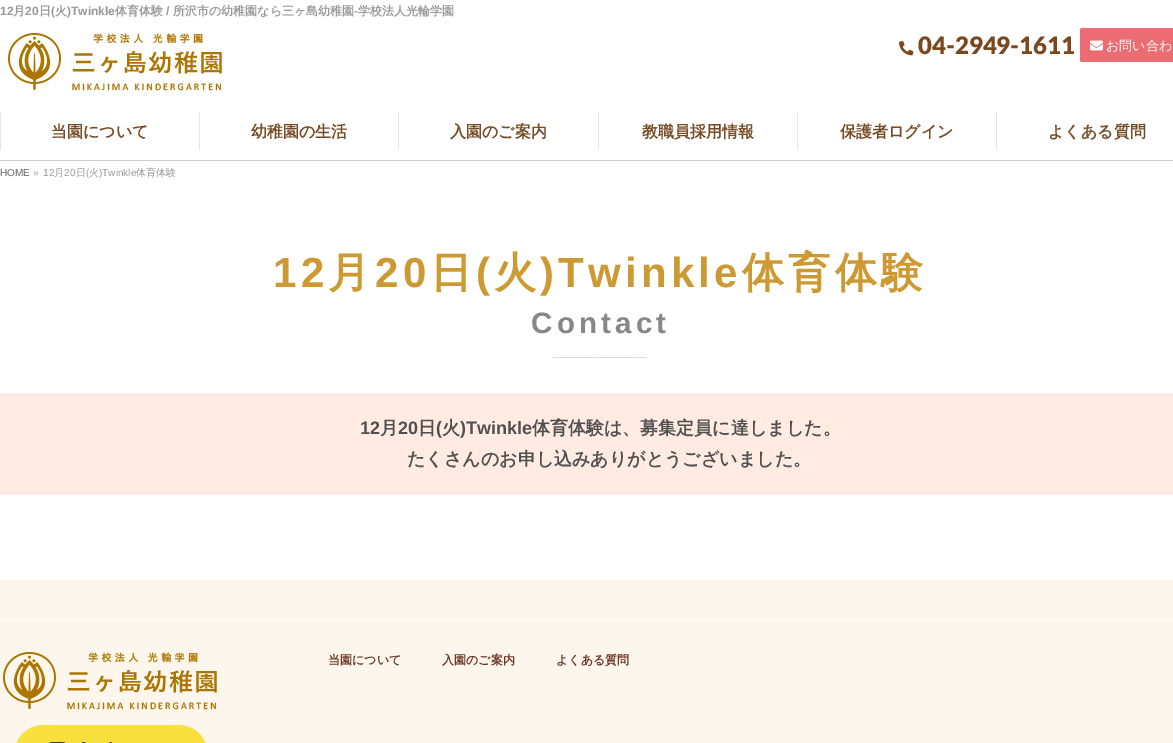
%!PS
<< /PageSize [1173 743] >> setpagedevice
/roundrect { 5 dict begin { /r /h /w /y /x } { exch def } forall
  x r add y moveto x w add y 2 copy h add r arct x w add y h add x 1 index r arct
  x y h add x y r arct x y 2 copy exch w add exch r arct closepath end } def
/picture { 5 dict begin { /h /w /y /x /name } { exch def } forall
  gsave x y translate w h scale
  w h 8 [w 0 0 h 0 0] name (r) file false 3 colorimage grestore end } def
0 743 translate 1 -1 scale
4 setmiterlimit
1 setgray
0 0 1173 743 rectfill
/LiberationSans-Bold [12 0 0 -12 0 0] selectfont
0.6 setgray
0 15 moveto (12) show
/WenQuanYiZenHei-Bold [12 0 0 -12 0 0] selectfont
13 15 moveto (月) show
/LiberationSans-Bold [12 0 0 -12 0 0] selectfont
25 15 moveto (20) show
/WenQuanYiZenHei-Bold [12 0 0 -12 0 0] selectfont
39 15 moveto (日) show
/LiberationSans-Bold [12 0 0 -12 0 0] selectfont
51 15 moveto (\() show
/WenQuanYiZenHei-Bold [12 0 0 -12 0 0] selectfont
55 15 moveto (火) show
/LiberationSans-Bold [12 0 0 -12 0 0] selectfont
67 15 moveto (\)Twinkle) show
/WenQuanYiZenHei-Bold [12 0 0 -12 0 0] selectfont
115 15 moveto (体育体験) show
/LiberationSans-Bold [12 0 0 -12 0 0] selectfont
166 15 moveto (/) show
/WenQuanYiZenHei-Bold [12 0 0 -12 0 0] selectfont
173 15 moveto (所沢市の幼稚園なら三ヶ島幼稚園) show
/LiberationSans-Bold [12 0 0 -12 0 0] selectfont
354 15 moveto (-) show
/WenQuanYiZenHei-Bold [12 0 0 -12 0 0] selectfont
358 15 moveto (学校法人光輪学園) show
(img1.rgb) 8 33 214 58 picture
(img2.rgb) 899 41 15 15 picture
/Lato-Black [24 0 0 -24 0 0] selectfont
0.49 0.278 0.114 setrgbcolor
918 54 moveto (04-2949-1611) show
0.922 0.427 0.451 setrgbcolor
newpath 1082 28 moveto 1173 28 lineto 1173 62 lineto 1082 62 lineto 1081 62 1080 61 1080 60 curveto 1080 30 lineto 1080 29 1081 28 1082 28 curveto closepath fill
(img3.rgb) 1090 40 13 11 picture
/WenQuanYiZenHei-Medium [13 0 0 -13 0 0] selectfont
1 setgray
1106 50 moveto (お問い合わ) show
0.8 setgray
0 160 1173 1 rectfill
0.898 setgray
0 112 1 38 rectfill
199 112 1 38 rectfill
/WenQuanYiZenHei-Bold [16 0 0 -16 0 0] selectfont
0.459 0.298 0.141 setrgbcolor
51 137 moveto (当園について) show
0.898 setgray
398 112 1 38 rectfill
0.459 0.298 0.141 setrgbcolor
251 137 moveto (幼稚園の生活) show
0.898 setgray
598 112 1 38 rectfill
0.459 0.298 0.141 setrgbcolor
450 137 moveto (入園のご案内) show
0.898 setgray
797 112 1 38 rectfill
0.459 0.298 0.141 setrgbcolor
642 137 moveto (教職員採用情報) show
0.898 setgray
996 112 1 38 rectfill
0.459 0.298 0.141 setrgbcolor
840 137 moveto (保護者ログイン) show
1048 137 moveto (よくある質問) show
/LiberationSans-Regular [10 0 0 -10 0 0] selectfont
0.4 setgray
0 176 moveto (HOME) show
0.6 setgray
33 176 moveto (») show
43 176 moveto (12) show
/WenQuanYiZenHei-Medium [10 0 0 -10 0 0] selectfont
54 176 moveto (月) show
/LiberationSans-Regular [10 0 0 -10 0 0] selectfont
64 176 moveto (20) show
/WenQuanYiZenHei-Medium [10 0 0 -10 0 0] selectfont
76 176 moveto (日) show
/LiberationSans-Regular [10 0 0 -10 0 0] selectfont
86 176 moveto (\() show
/WenQuanYiZenHei-Medium [10 0 0 -10 0 0] selectfont
89 176 moveto (火) show
/LiberationSans-Regular [10 0 0 -10 0 0] selectfont
99 176 moveto (\)Twinkle) show
/WenQuanYiZenHei-Medium [10 0 0 -10 0 0] selectfont
136 176 moveto (体育体験) show
/LiberationSans-Bold [42 0 0 -42 0 0] selectfont
0.8 0.6 0.2 setrgbcolor
273 287 moveto 4.25 0 (12) ashow
/WenQuanYiZenHei-Bold [42 0 0 -42 0 0] selectfont
328 287 moveto 4.25 0 (月) ashow
/LiberationSans-Bold [42 0 0 -42 0 0] selectfont
375 287 moveto 4.25 0 (20) ashow
/WenQuanYiZenHei-Bold [42 0 0 -42 0 0] selectfont
430 287 moveto 4.25 0 (日) ashow
/LiberationSans-Bold [42 0 0 -42 0 0] selectfont
476 287 moveto 4.25 0 (\() ashow
/WenQuanYiZenHei-Bold [42 0 0 -42 0 0] selectfont
494 287 moveto 4.25 0 (火) ashow
/LiberationSans-Bold [42 0 0 -42 0 0] selectfont
540 287 moveto 4.25 0 (\)Twinkle) ashow
/WenQuanYiZenHei-Bold [42 0 0 -42 0 0] selectfont
742 287 moveto 4.25 0 (体育体験) ashow
/LiberationSans-Bold [29.5 0 0 -29.5 0 0] selectfont
0.529 setgray
531 333 moveto 4.25 0 (Contact) ashow
/LiberationSans-Bold [12 0 0 -12 0 0] selectfont
0.745 setgray
553 356 moveto (______________) show
1 0.922 0.882 setrgbcolor
0 393 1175 102 2 roundrect fill
/LiberationSans-Bold [18 0 0 -18 0 0] selectfont
0.314 setgray
360 434 moveto (12) show
/WenQuanYiZenHei-Bold [18 0 0 -18 0 0] selectfont
380 434 moveto (月) show
/LiberationSans-Bold [18 0 0 -18 0 0] selectfont
398 434 moveto (20) show
/WenQuanYiZenHei-Bold [18 0 0 -18 0 0] selectfont
418 434 moveto (日) show
/LiberationSans-Bold [18 0 0 -18 0 0] selectfont
436 434 moveto (\() show
/WenQuanYiZenHei-Bold [18 0 0 -18 0 0] selectfont
442 434 moveto (火) show
/LiberationSans-Bold [18 0 0 -18 0 0] selectfont
460 434 moveto (\)Twinkle) show
/WenQuanYiZenHei-Bold [18 0 0 -18 0 0] selectfont
532 434 moveto (体育体験は、募集定員に達しました。) show
407 465 moveto (たくさんのお申し込みありがとうございました。) show
0.992 0.965 0.925 setrgbcolor
0 580 1173 163 rectfill
1 0.992 0.984 setrgbcolor
0 620 1173 1 rectfill
(img4.rgb) 3 652 214 58 picture
(img5.rgb) 16 725 190 18 picture
/WenQuanYiZenHei-Bold [12 0 0 -12 0 0] selectfont
0.424 0.208 0.141 setrgbcolor
328 664 moveto (当園について) show
442 664 moveto (入園のご案内) show
556 664 moveto (よくある質問) show
showpage
